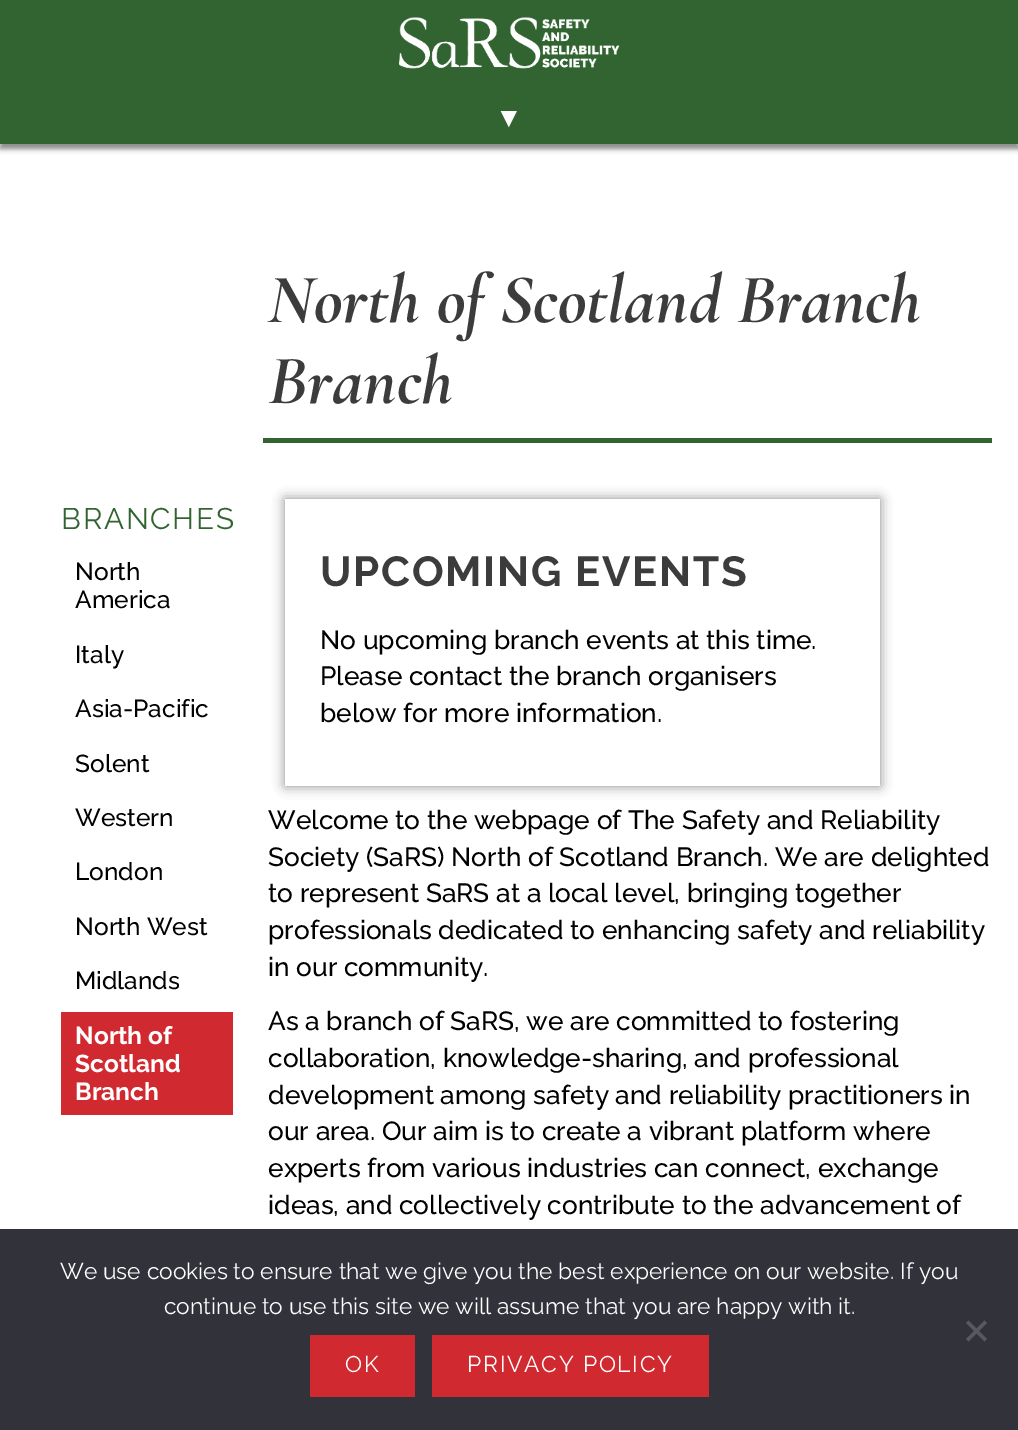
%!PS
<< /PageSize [1018 1430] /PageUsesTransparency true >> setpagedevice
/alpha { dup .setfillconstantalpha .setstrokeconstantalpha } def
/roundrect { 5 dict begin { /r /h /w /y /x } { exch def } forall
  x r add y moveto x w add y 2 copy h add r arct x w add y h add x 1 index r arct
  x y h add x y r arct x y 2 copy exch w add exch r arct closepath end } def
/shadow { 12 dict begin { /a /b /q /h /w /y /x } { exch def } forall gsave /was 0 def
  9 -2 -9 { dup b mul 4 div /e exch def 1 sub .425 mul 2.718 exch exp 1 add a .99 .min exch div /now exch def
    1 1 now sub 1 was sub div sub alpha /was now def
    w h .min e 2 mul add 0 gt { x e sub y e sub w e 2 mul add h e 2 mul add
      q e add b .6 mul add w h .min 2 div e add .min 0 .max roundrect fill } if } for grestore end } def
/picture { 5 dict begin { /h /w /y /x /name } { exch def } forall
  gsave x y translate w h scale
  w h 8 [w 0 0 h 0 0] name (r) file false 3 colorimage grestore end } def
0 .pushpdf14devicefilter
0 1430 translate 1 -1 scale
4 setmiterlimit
1 setgray
0 0 1018 1430 rectfill
0 setgray
0 5 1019 144 0 2.5 0.45 shadow
0.196 0.392 0.196 setrgbcolor
0 0 1018 144 rectfill
(img1.rgb) 399 17 221 52 picture
/LiberationSans-Regular [28 0 0 -28 0 0] selectfont
1 setgray
495 127 moveto (▼) show
0.196 0.392 0.196 setrgbcolor
263 438 729 5 rectfill
/Cormorant-BoldItalic [70 0 0 -70 0 0] selectfont
0.235 setgray
268 322 moveto (North of Scotland Branch) show
268 403 moveto (Branch) show
/Raleway-Regular [29.75 0 0 -29.75 0 0] selectfont
0.196 0.392 0.196 setrgbcolor
61 529 moveto 1.75 0 (BRANCHES) ashow
/Raleway-Medium [24.5 0 0 -24.5 0 0] selectfont
0 setgray
75 580 moveto (North) show
75 608 moveto (America) show
75 663 moveto (Italy) show
75 717 moveto (Asia-Pacific) show
75 772 moveto (Solent) show
75 826 moveto (Western) show
75 880 moveto (London) show
75 935 moveto (North West) show
75 989 moveto (Midlands) show
0.82 0.161 0.188 setrgbcolor
61 1012 172 103 rectfill
/Raleway-Bold [24.5 0 0 -24.5 0 0] selectfont
1 setgray
75 1044 moveto (North of) show
75 1072 moveto (Scotland) show
75 1100 moveto (Branch) show
gsave
newpath 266 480 moveto 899 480 lineto 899 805 lineto 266 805 lineto closepath 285 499 moveto 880 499 lineto 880 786 lineto 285 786 lineto closepath eoclip newpath
0 setgray
285 499 595 287 0 6 0.45 shadow
grestore
/Raleway-Bold [42 0 0 -42 0 0] selectfont
0.235 setgray
320 586 moveto 1.75 0 (UPCOMING EVENTS) ashow
/Raleway-Medium [26.25 0 0 -26.25 0 0] selectfont
0 setgray
320 649 moveto (No upcoming branch events at this time.) show
320 685 moveto (Please contact the branch organisers) show
320 722 moveto (below for more information.) show
268 829 moveto (Welcome to the webpage of The Safety and Reliability) show
268 866 moveto (Society \(SaRS\) North of Scotland Branch. We are delighted) show
268 902 moveto (to represent SaRS at a local level, bringing together) show
268 939 moveto (professionals dedicated to enhancing safety and reliability) show
268 976 moveto (in our community.) show
268 1030 moveto (As a branch of SaRS, we are committed to fostering) show
268 1067 moveto (collaboration, knowledge-sharing, and professional) show
268 1104 moveto (development among safety and reliability practitioners in) show
268 1140 moveto (our area. Our aim is to create a vibrant platform where) show
268 1177 moveto (experts from various industries can connect, exchange) show
268 1214 moveto (ideas, and collectively contribute to the advancement of) show
0.196 0.196 0.227 setrgbcolor
0 1229 1018 201 rectfill
/Raleway-Regular [22.75 0 0 -22.75 0 0] selectfont
1 setgray
60 1279 moveto (We use cookies to ensure that we give you the best experience on our website. If you) show
164 1314 moveto (continue to use this site we will assume that you are happy with it.) show
0.349 0.349 0.365 setrgbcolor
newpath 984.5 1320.5 moveto 987 1323 lineto 968.5 1341.5 lineto 966 1339 lineto closepath fill
newpath 966 1323 moveto 968.5 1320.5 lineto 987 1339 lineto 984.5 1341.5 lineto closepath fill
0.82 0.161 0.188 setrgbcolor
310 1335 105 62 rectfill
1 setgray
345 1372 moveto 1.75 0 (OK) ashow
0.82 0.161 0.188 setrgbcolor
432 1335 277 62 rectfill
1 setgray
467 1372 moveto 1.75 0 (PRIVACY POLICY) ashow
.poppdf14devicefilter showpage
